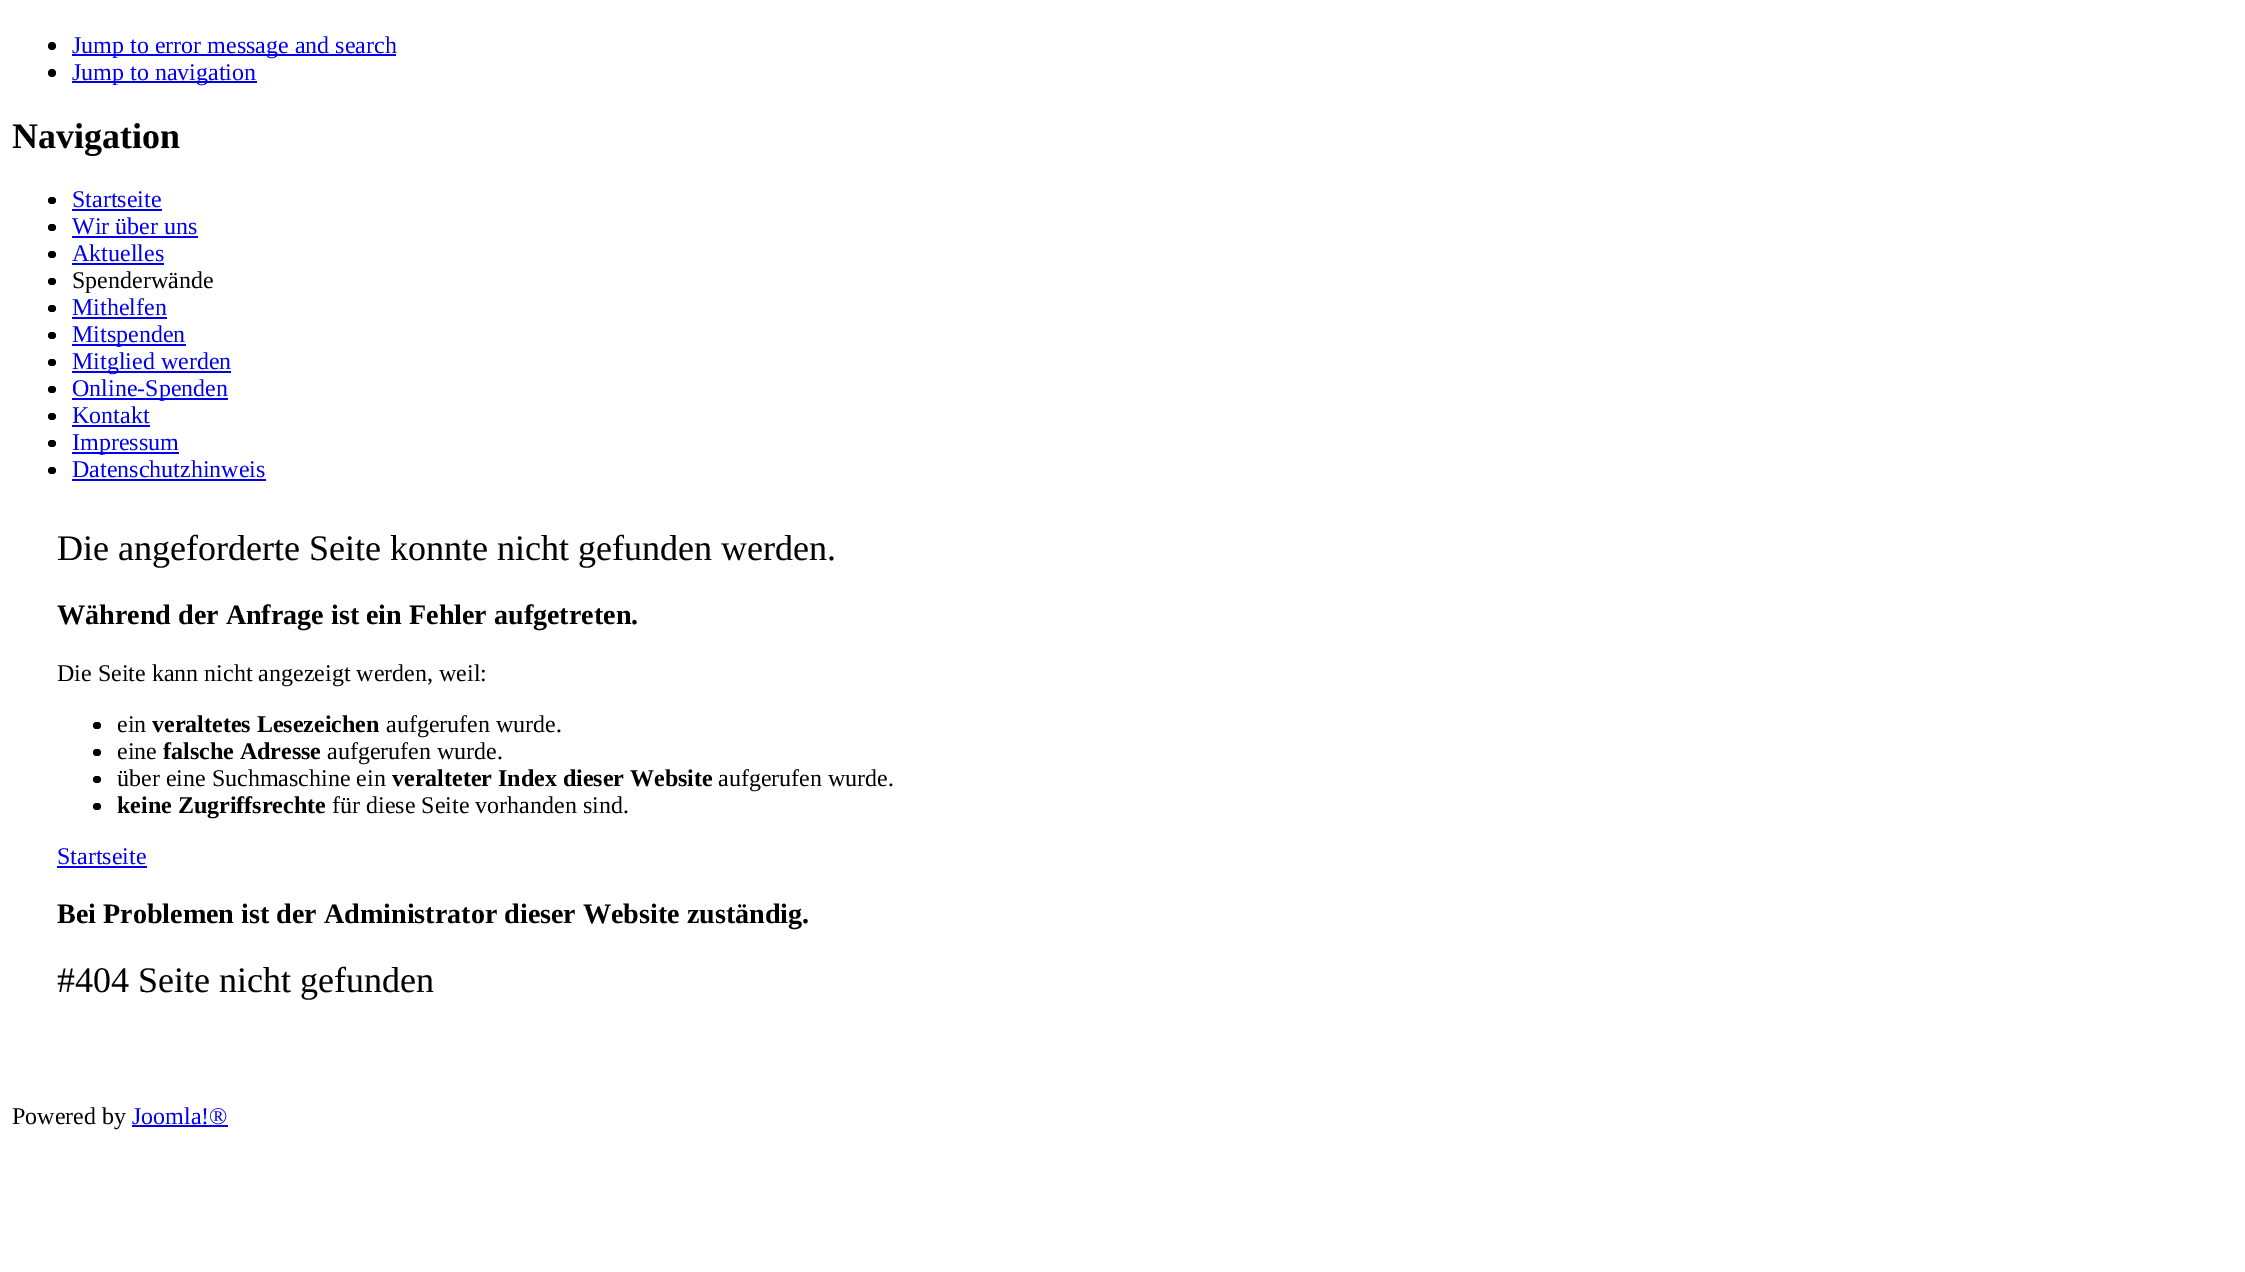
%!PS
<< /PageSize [2245 1272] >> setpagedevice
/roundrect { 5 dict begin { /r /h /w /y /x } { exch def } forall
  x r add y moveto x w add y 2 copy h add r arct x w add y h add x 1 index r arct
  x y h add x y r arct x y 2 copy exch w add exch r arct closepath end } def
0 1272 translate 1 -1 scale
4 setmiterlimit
1 setgray
0 0 2245 1272 rectfill
0 setgray
newpath 52 46 4 0 360 arc closepath fill
0 0 0.933 setrgbcolor
72 54 324 2 rectfill
/LiberationSerif-Regular [24 0 0 -24 0 0] selectfont
72 53 moveto (Jump to error message and search) show
0 setgray
newpath 52 73 4 0 360 arc closepath fill
0 0 0.933 setrgbcolor
72 81 185 2 rectfill
72 80 moveto (Jump to navigation) show
/LiberationSerif-Bold [36 0 0 -36 0 0] selectfont
0 setgray
12 148 moveto (Navigation) show
48 197 8 7 3.5 roundrect fill
/LiberationSerif-Regular [24 0 0 -24 0 0] selectfont
0 0 0.933 setrgbcolor
72 207 moveto (Startseite) show
72 209 90 2 rectfill
0 setgray
48 224 8 7 3.5 roundrect fill
0 0 0.933 setrgbcolor
72 234 moveto (Wir über uns) show
72 236 126 2 rectfill
0 setgray
48 251 8 7 3.5 roundrect fill
0 0 0.933 setrgbcolor
72 261 moveto (Aktuelles) show
72 263 92 2 rectfill
0 setgray
48 278 8 7 3.5 roundrect fill
72 288 moveto (Spenderwände) show
48 305 8 7 3.5 roundrect fill
0 0 0.933 setrgbcolor
72 315 moveto (Mithelfen) show
72 317 95 2 rectfill
0 setgray
48 332 8 7 3.5 roundrect fill
0 0 0.933 setrgbcolor
72 344 114 2 rectfill
72 342 moveto (Mitspenden) show
0 setgray
48 359 8 7 3.5 roundrect fill
0 0 0.933 setrgbcolor
72 371 159 2 rectfill
72 369 moveto (Mitglied werden) show
0 setgray
48 386 8 7 3.5 roundrect fill
0 0 0.933 setrgbcolor
72 398 156 2 rectfill
72 396 moveto (Online-Spenden) show
0 setgray
48 413 8 7 3.5 roundrect fill
0 0 0.933 setrgbcolor
72 423 moveto (Kontakt) show
72 425 78 2 rectfill
0 setgray
48 440 8 7 3.5 roundrect fill
0 0 0.933 setrgbcolor
72 452 107 2 rectfill
72 450 moveto (Impressum) show
0 setgray
48 467 8 7 3.5 roundrect fill
0 0 0.933 setrgbcolor
72 477 moveto (Datenschutzhinweis) show
72 479 194 2 rectfill
/LiberationSerif-Regular [36 0 0 -36 0 0] selectfont
0 setgray
57 560 moveto (Die angeforderte Seite konnte nicht gefunden werden.) show
/LiberationSerif-Bold [28.1 0 0 -28.1 0 0] selectfont
57 624 moveto (Während der Anfrage ist ein Fehler aufgetreten.) show
/LiberationSerif-Regular [24 0 0 -24 0 0] selectfont
57 681 moveto (Die Seite kann nicht angezeigt werden, weil:) show
93 722 8 7 3.5 roundrect fill
117 732 moveto (ein) show
/LiberationSerif-Bold [24 0 0 -24 0 0] selectfont
152 732 moveto (veraltetes Lesezeichen) show
/LiberationSerif-Regular [24 0 0 -24 0 0] selectfont
386 732 moveto (aufgerufen wurde.) show
93 749 8 7 3.5 roundrect fill
117 759 moveto (eine) show
/LiberationSerif-Bold [24 0 0 -24 0 0] selectfont
163 759 moveto (falsche Adresse) show
/LiberationSerif-Regular [24 0 0 -24 0 0] selectfont
327 759 moveto (aufgerufen wurde.) show
93 776 8 7 3.5 roundrect fill
117 786 moveto (über eine Suchmaschine ein) show
/LiberationSerif-Bold [24 0 0 -24 0 0] selectfont
392 786 moveto (veralteter Index dieser Website) show
/LiberationSerif-Regular [24 0 0 -24 0 0] selectfont
718 786 moveto (aufgerufen wurde.) show
93 803 8 7 3.5 roundrect fill
/LiberationSerif-Bold [24 0 0 -24 0 0] selectfont
117 813 moveto (keine Zugriffsrechte) show
/LiberationSerif-Regular [24 0 0 -24 0 0] selectfont
332 813 moveto (für diese Seite vorhanden sind.) show
0 0 0.933 setrgbcolor
57 864 moveto (Startseite) show
57 866 90 2 rectfill
/LiberationSerif-Bold [28.1 0 0 -28.1 0 0] selectfont
0 setgray
57 923 moveto (Bei Problemen ist der Administrator dieser Website zuständig.) show
/LiberationSerif-Regular [36 0 0 -36 0 0] selectfont
57 992 moveto (#404 Seite nicht gefunden) show
/LiberationSerif-Regular [24 0 0 -24 0 0] selectfont
12 1124 moveto (Powered by) show
0 0 0.933 setrgbcolor
132 1124 moveto (Joomla!®) show
132 1125 96 2 rectfill
showpage
